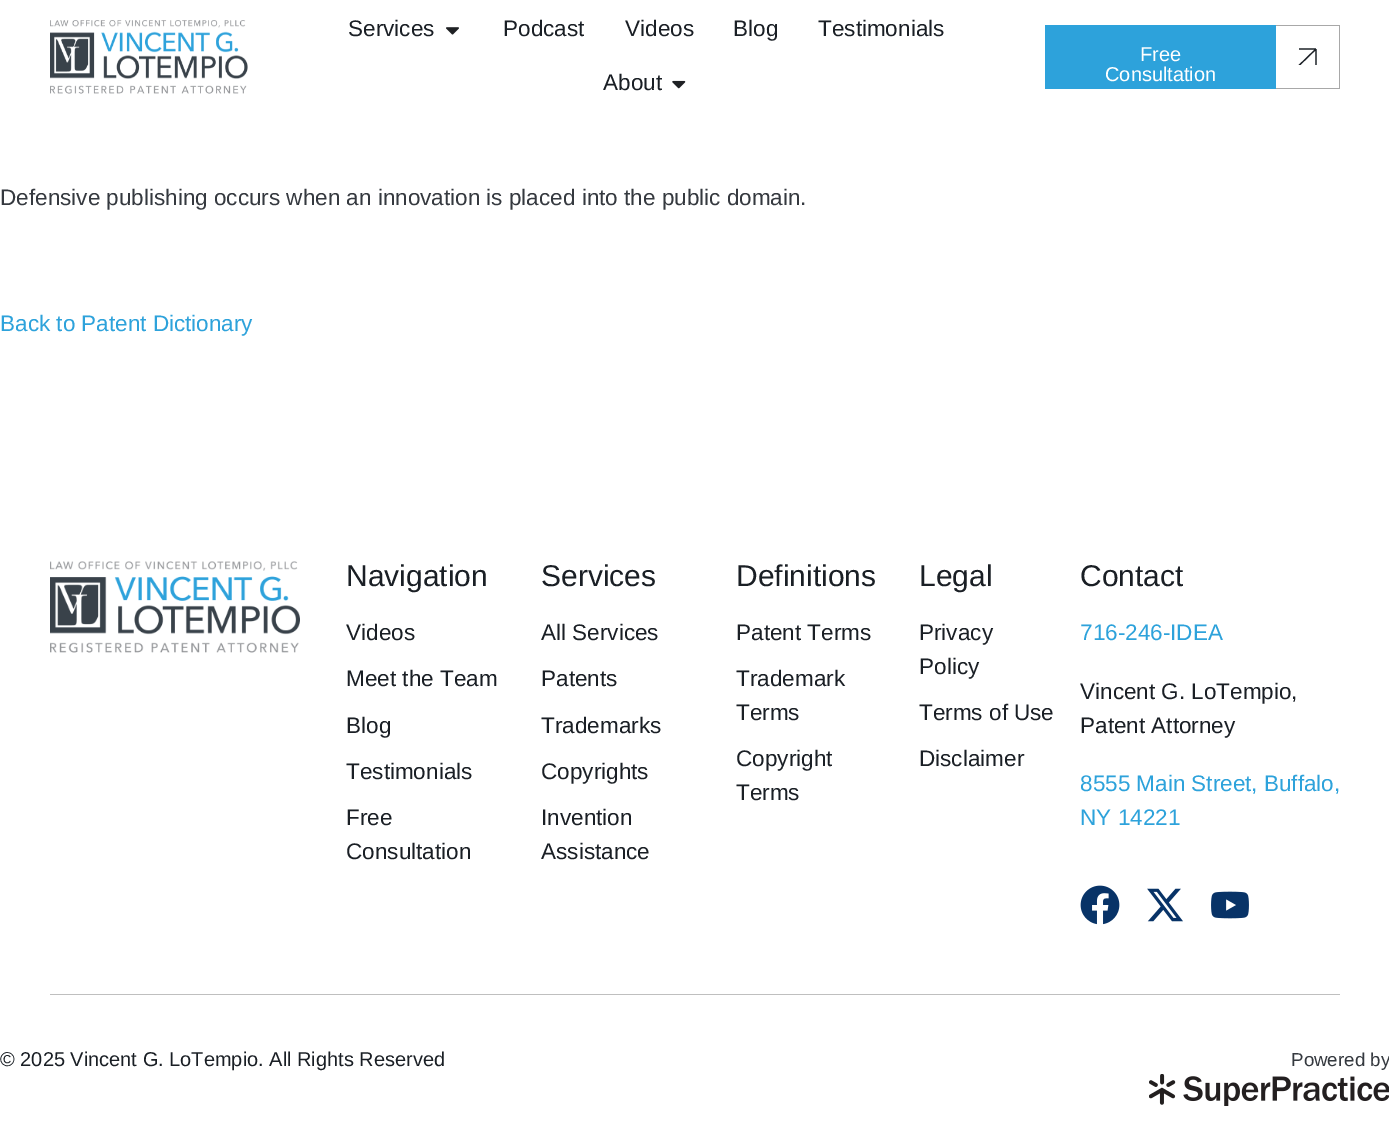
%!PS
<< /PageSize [1389 1147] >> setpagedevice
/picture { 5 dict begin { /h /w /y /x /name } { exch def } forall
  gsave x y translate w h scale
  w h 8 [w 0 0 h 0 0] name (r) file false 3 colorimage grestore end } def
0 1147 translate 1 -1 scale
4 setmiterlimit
1 setgray
0 0 1389 1147 rectfill
(img1.rgb) 50 20 198 74 picture
/LiberationSans-Regular [22.5 0 0 -22.5 0 0] selectfont
0.102 0.122 0.145 setrgbcolor
348 36 moveto (Services) show
(img2.rgb) 446 27 13 8 picture
503 36 moveto (Podcast) show
625 36 moveto (Videos) show
733 36 moveto (Blog) show
818 36 moveto (Testimonials) show
603 90 moveto (About) show
(img3.rgb) 672 80 14 9 picture
0.176 0.635 0.859 setrgbcolor
1045 25 231 64 rectfill
/LiberationSans-Regular [20 0 0 -20 0 0] selectfont
1 setgray
1140 61 moveto (Free) show
1105 81 moveto (Consultation) show
0.659 setgray
1276 25 64 1 rectfill
1339 25 1 64 rectfill
1276 88 64 1 rectfill
gsave
1298 48 20 17 rectclip
0.102 0.122 0.145 setrgbcolor
1.2 setlinewidth
newpath 1299 65.5 moveto 1316 49 lineto 1316 49 moveto 1299 49 lineto 1316 49 moveto 1316 65.5 lineto stroke
grestore
/LiberationSans-Regular [22.5 0 0 -22.5 0 0] selectfont
0.208 0.224 0.247 setrgbcolor
0 205 moveto (Defensive publishing occurs when an innovation is placed into the public domain.) show
0.176 0.635 0.859 setrgbcolor
0 331 moveto (Back to Patent Dictionary) show
(img4.rgb) 50 561 250 92 picture
/LiberationSans-Regular [30 0 0 -30 0 0] selectfont
0.102 0.122 0.145 setrgbcolor
346 586 moveto (Navigation) show
/LiberationSans-Regular [22.5 0 0 -22.5 0 0] selectfont
346 640 moveto (Videos) show
346 686 moveto (Meet the Team) show
346 733 moveto (Blog) show
346 779 moveto (Testimonials) show
346 825 moveto (Free) show
346 859 moveto (Consultation) show
/LiberationSans-Regular [30 0 0 -30 0 0] selectfont
541 586 moveto (Services) show
/LiberationSans-Regular [22.5 0 0 -22.5 0 0] selectfont
541 640 moveto (All Services) show
541 686 moveto (Patents) show
541 733 moveto (Trademarks) show
541 779 moveto (Copyrights) show
541 825 moveto (Invention) show
541 859 moveto (Assistance) show
/LiberationSans-Regular [30 0 0 -30 0 0] selectfont
736 586 moveto (Definitions) show
/LiberationSans-Regular [22.5 0 0 -22.5 0 0] selectfont
736 640 moveto (Patent Terms) show
736 686 moveto (Trademark) show
736 720 moveto (Terms) show
736 766 moveto (Copyright) show
736 800 moveto (Terms) show
/LiberationSans-Regular [30 0 0 -30 0 0] selectfont
919 586 moveto (Legal) show
/LiberationSans-Regular [22.5 0 0 -22.5 0 0] selectfont
919 640 moveto (Privacy) show
919 674 moveto (Policy) show
919 720 moveto (Terms of Use) show
919 766 moveto (Disclaimer) show
/LiberationSans-Regular [30 0 0 -30 0 0] selectfont
1080 586 moveto (Contact) show
/LiberationSans-Regular [22.5 0 0 -22.5 0 0] selectfont
0.176 0.635 0.859 setrgbcolor
1080 640 moveto (716-246-IDEA) show
0.102 0.122 0.145 setrgbcolor
1080 699 moveto (Vincent G. LoTempio,) show
1080 733 moveto (Patent Attorney) show
0.176 0.635 0.859 setrgbcolor
1080 791 moveto (8555 Main Street, Buffalo,) show
1080 825 moveto (NY 14221) show
(img5.rgb) 1080 885 40 40 picture
(img6.rgb) 1147 888 36 34 picture
(img7.rgb) 1211 891 38 28 picture
0.749 setgray
50 994 1290 1 rectfill
/LiberationSans-Regular [20 0 0 -20 0 0] selectfont
0.102 0.122 0.145 setrgbcolor
0 1066 moveto (© 2025 Vincent G. LoTempio. All Rights Reserved) show
/LiberationSans-Regular [18.75 0 0 -18.75 0 0] selectfont
0.208 0.224 0.247 setrgbcolor
1291 1066 moveto (Powered by) show
(img8.rgb) 1149 1074 240 32 picture
showpage
